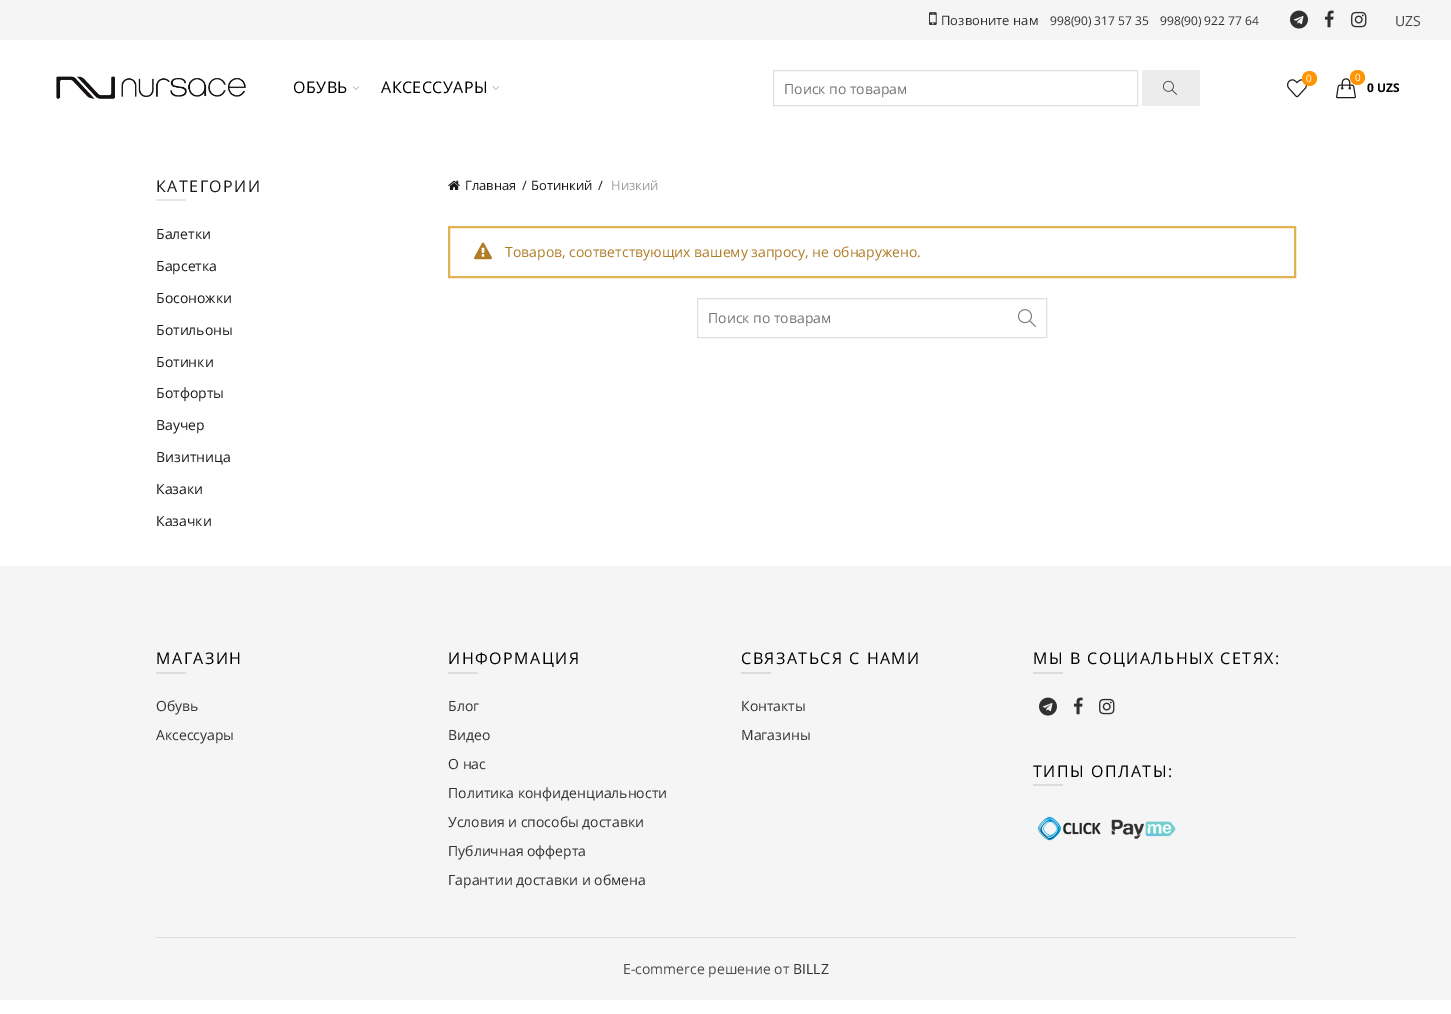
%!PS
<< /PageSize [1451 1014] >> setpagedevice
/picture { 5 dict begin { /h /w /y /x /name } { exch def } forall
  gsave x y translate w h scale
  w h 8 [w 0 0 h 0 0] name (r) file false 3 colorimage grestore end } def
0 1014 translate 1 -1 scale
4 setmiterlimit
1 setgray
0 0 1451 1014 rectfill
0.961 setgray
0 0 1451 40 rectfill
(img1.rgb) 929 12 8 13 picture
/OpenSans-Regular [13 0 0 -13 0 0] selectfont
0.192 setgray
941 25 moveto (Позвоните нам) show
/OpenSans-Regular [12 0 0 -12 0 0] selectfont
1050 25 moveto (998\(90\) 317 57 35) show
1160 25 moveto (998\(90\) 922 77 64) show
(img2.rgb) 1290 10 18 19 picture
(img3.rgb) 1324 10 10 18 picture
(img4.rgb) 1351 11 16 17 picture
/OpenSans-Regular [14 0 0 -14 0 0] selectfont
0.29 setgray
1395 26 moveto (UZS) show
(img5.rgb) 56 76 190 23 picture
/OpenSans-Regular [16 0 0 -16 0 0] selectfont
0 setgray
293 93 moveto 0.5 0 (ОБУВЬ) ashow
(img6.rgb) 352 86 8 4 picture
381 93 moveto 0.5 0 (АКСЕССУАРЫ) ashow
(img6.rgb) 492 86 8 4 picture
0.878 setgray
773.5 70.5 364 35 rectstroke
/OpenSans-Regular [14 0 0 -14 0 0] selectfont
0.459 setgray
784 94 moveto (Поиск по товарам) show
0.925 setgray
1142 70 58 36 rectfill
(img7.rgb) 1163 80 14 15 picture
(img8.rgb) 1287 79 20 19 picture
1 0.588 0.004 setrgbcolor
newpath 1309.5 78.5 7.5 0 360 arc closepath fill
/OpenSans-Regular [10 0 0 -10 0 0] selectfont
1 setgray
1306 82 moveto (0) show
(img9.rgb) 1336 78 20 21 picture
1 0.588 0.004 setrgbcolor
newpath 1357.5 77.5 7.5 0 360 arc closepath fill
1 setgray
1355 81 moveto (0) show
/OpenSans-Bold [12 0 0 -12 0 0] selectfont
0 setgray
1367 92 moveto (0 UZS) show
/OpenSans-Regular [16 0 0 -16 0 0] selectfont
0.106 0.098 0.098 setrgbcolor
156 192 moveto 1.5 0 (КАТЕГОРИИ) ashow
0.902 setgray
156 199 30 2 rectfill
/OpenSans-Regular [14 0 0 -14 0 0] selectfont
0.106 0.098 0.098 setrgbcolor
156 239 moveto (Балетки) show
156 271 moveto (Барсетка) show
156 303 moveto (Босоножки) show
156 335 moveto (Ботильоны) show
156 367 moveto (Ботинки) show
156 398 moveto (Ботфорты) show
156 430 moveto (Ваучер) show
156 462 moveto (Визитница) show
156 494 moveto (Казаки) show
gsave
156 226 262 300 rectclip
156 526 moveto (Казачки) show
grestore
(img10.rgb) 448 180 12 10 picture
/OpenSans-Regular [13 0 0 -13 0 0] selectfont
465 190 moveto (Главная) show
522 190 moveto (/) show
531 190 moveto (Ботинкий) show
598 190 moveto (/) show
0.62 setgray
611 190 moveto (Низкий) show
0.878 0.698 0.322 setrgbcolor
2 setlinewidth
449 227 846 50 rectstroke
(img11.rgb) 474 242 18 18 picture
/OpenSans-Regular [14 0 0 -14 0 0] selectfont
0.686 0.49 0.153 setrgbcolor
505 257 moveto (Товаров, соответствующих вашему запросу, не обнаружено.) show
0.878 setgray
1 setlinewidth
697.5 298.5 349 39 rectstroke
0.459 setgray
708 323 moveto (Поиск по товарам) show
(img12.rgb) 1018 309 18 19 picture
0.961 setgray
0 566 1451 434 rectfill
/OpenSans-Regular [16 0 0 -16 0 0] selectfont
0 setgray
156 664 moveto 1.5 0 (МАГАЗИН) ashow
0.867 setgray
156 672 30 2 rectfill
/OpenSans-Regular [14 0 0 -14 0 0] selectfont
0.192 setgray
156 711 moveto (Обувь) show
156 740 moveto (Аксессуары) show
/OpenSans-Regular [16 0 0 -16 0 0] selectfont
0 setgray
448 664 moveto 1.5 0 (ИНФОРМАЦИЯ) ashow
0.867 setgray
448 672 30 2 rectfill
/OpenSans-Regular [14 0 0 -14 0 0] selectfont
0.192 setgray
448 711 moveto (Блог) show
448 740 moveto (Видео) show
448 769 moveto (О нас) show
448 798 moveto (Политика конфиденциальности) show
448 827 moveto (Условия и способы доставки) show
448 856 moveto (Публичная офферта) show
448 885 moveto (Гарантии доставки и обмена) show
/OpenSans-Regular [16 0 0 -16 0 0] selectfont
0 setgray
741 664 moveto 1.5 0 (СВЯЗАТЬСЯ С НАМИ) ashow
0.867 setgray
741 672 30 2 rectfill
/OpenSans-Regular [14 0 0 -14 0 0] selectfont
0.192 setgray
741 711 moveto (Контакты) show
741 740 moveto (Магазины) show
/OpenSans-Regular [16 0 0 -16 0 0] selectfont
0 setgray
1033 664 moveto 1.5 0 (МЫ В СОЦИАЛЬНЫХ СЕТЯХ:) ashow
0.867 setgray
1033 672 30 2 rectfill
(img2.rgb) 1039 697 18 19 picture
(img3.rgb) 1073 697 10 18 picture
(img4.rgb) 1099 698 16 17 picture
0 setgray
1033 777 moveto 1.5 0 (ТИПЫ ОПЛАТЫ:) ashow
0.867 setgray
1033 784 30 2 rectfill
(img13.rgb) 1037 816 139 25 picture
156 937 1140 1 rectfill
/OpenSans-Regular [14 0 0 -14 0 0] selectfont
0.29 setgray
623 974 moveto (E-commerce решение от) show
0.192 setgray
793 974 moveto (BILLZ) show
showpage
